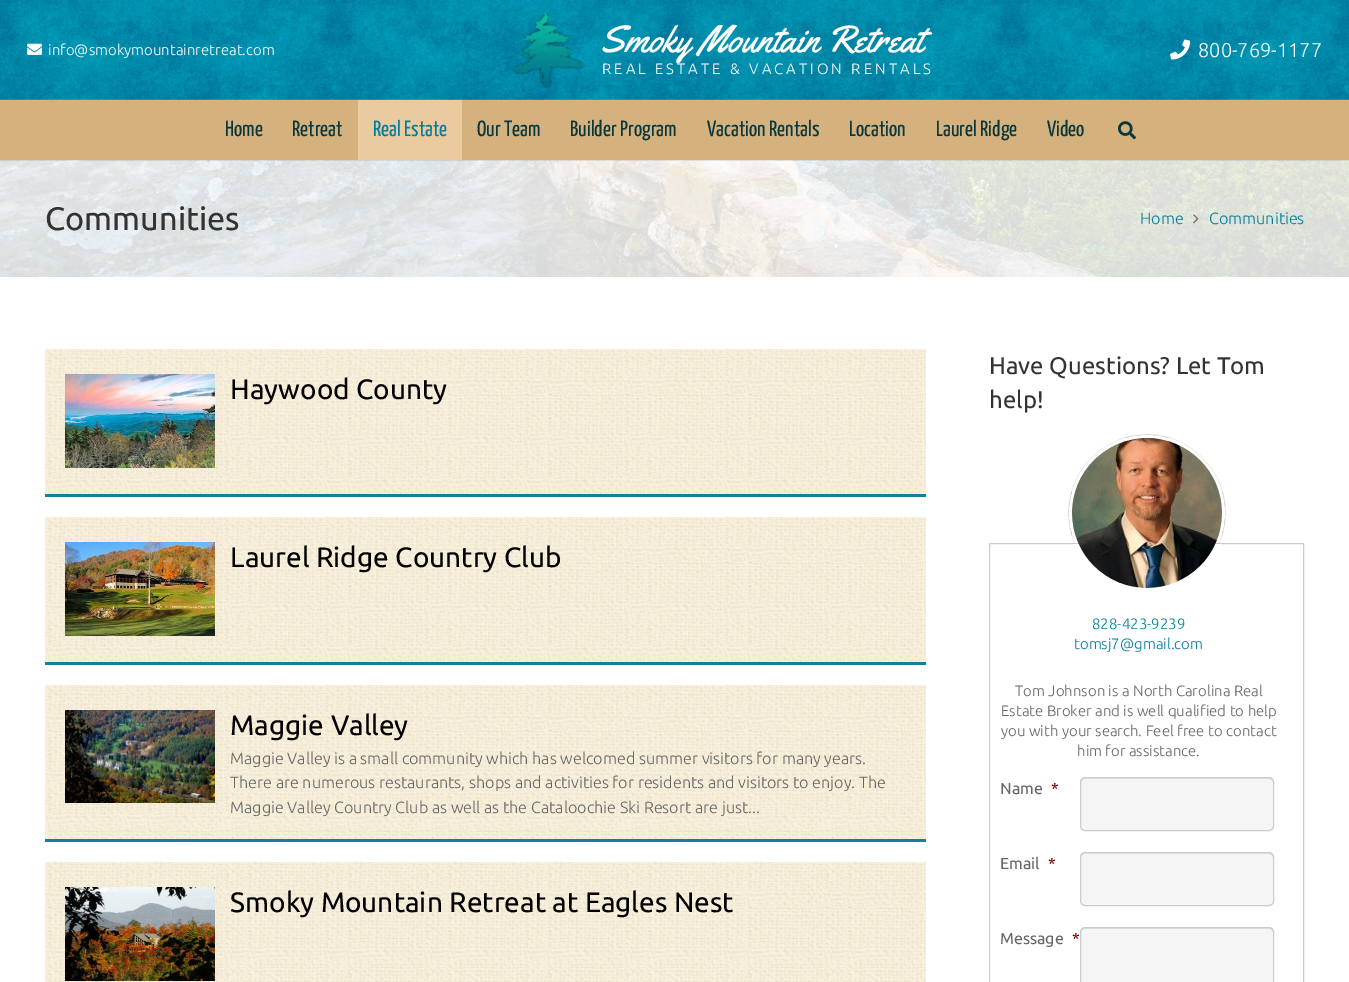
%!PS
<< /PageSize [1349 982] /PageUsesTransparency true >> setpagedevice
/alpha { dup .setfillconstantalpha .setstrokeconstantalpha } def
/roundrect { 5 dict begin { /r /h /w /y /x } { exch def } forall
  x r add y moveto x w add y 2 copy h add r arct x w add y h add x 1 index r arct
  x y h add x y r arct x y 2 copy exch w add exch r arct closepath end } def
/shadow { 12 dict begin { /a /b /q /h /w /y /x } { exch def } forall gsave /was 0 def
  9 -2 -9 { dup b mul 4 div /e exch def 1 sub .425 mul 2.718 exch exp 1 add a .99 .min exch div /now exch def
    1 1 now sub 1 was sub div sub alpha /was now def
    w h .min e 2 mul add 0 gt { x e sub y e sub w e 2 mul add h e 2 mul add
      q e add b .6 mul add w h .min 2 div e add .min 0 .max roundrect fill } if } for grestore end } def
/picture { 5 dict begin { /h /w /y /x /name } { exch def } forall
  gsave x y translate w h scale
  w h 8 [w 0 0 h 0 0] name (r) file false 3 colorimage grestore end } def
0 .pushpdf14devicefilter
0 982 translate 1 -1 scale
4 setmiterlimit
1 setgray
0 0 1349 982 rectfill
(img6.rgb) 0 99 1349 178 picture
(img1.rgb) 0 0 1349 100 picture
(img2.rgb) 27 43 15 12 picture
/Ubuntu-Light [15 0 0 -15 0 0] selectfont
48 55 moveto (info@smokymountainretreat.com) show
(img3.rgb) 512 12 73 77 picture
/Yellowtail-Regular [38 0 0 -38 0 0] selectfont
600 52 moveto (Smoky Mountain Retreat) show
/Ubuntu-Light [15 0 0 -15 0 0] selectfont
602 74 moveto 3 0 (REAL ESTATE & VACATION RENTALS) ashow
(img4.rgb) 1170 39 20 21 picture
/Ubuntu-Light [20 0 0 -20 0 0] selectfont
1198 57 moveto (800-769-1177) show
0.08 alpha
0 setgray
0 160 1349 1 rectfill
1 alpha
0.835 0.694 0.494 setrgbcolor
0 100 1349 60 rectfill
/YanoneKaffeesatz-Regular [22 0 0 -22 0 0] selectfont
0.031 0.22 0.239 setrgbcolor
225 136 moveto (Home) show
292 136 moveto (Retreat) show
0.918 0.796 0.627 setrgbcolor
358 100 104 60 rectfill
0.004 0.494 0.62 setrgbcolor
373 136 moveto (Real Estate) show
0.031 0.22 0.239 setrgbcolor
477 136 moveto (Our Team) show
570 136 moveto (Builder Program) show
707 136 moveto (Vacation Rentals) show
849 136 moveto (Location) show
936 136 moveto (Laurel Ridge) show
1047 136 moveto (Video) show
(img5.rgb) 1118 121 18 19 picture
/Ubuntu-Regular [32.5 0 0 -32.5 0 0] selectfont
0.2 setgray
45 230 moveto (Communities) show
/Ubuntu-Light [16.2 0 0 -16.2 0 0] selectfont
0.004 0.494 0.62 setrgbcolor
1140 224 moveto (Home) show
(img7.rgb) 1193 214 6 10 picture
1209 224 moveto (Communities) show
(img8.rgb) 45 349 881 145 picture
0.09 0.494 0.612 setrgbcolor
45 494 881 3 rectfill
(img9.rgb) 65 374 150 94 picture
/Ubuntu-Regular [28 0 0 -28 0 0] selectfont
0 setgray
230 399 moveto (Haywood County) show
(img8.rgb) 45 517 881 145 picture
0.09 0.494 0.612 setrgbcolor
45 662 881 3 rectfill
(img10.rgb) 65 542 150 94 picture
0 setgray
230 567 moveto (Laurel Ridge Country Club) show
(img11.rgb) 45 685 881 154 picture
0.09 0.494 0.612 setrgbcolor
45 839 881 3 rectfill
(img12.rgb) 65 710 150 93 picture
0 setgray
230 735 moveto (Maggie Valley) show
/Ubuntu-Light [16.2 0 0 -16.2 0 0] selectfont
0.4 setgray
230 764 moveto (Maggie Valley is a small community which has welcomed summer visitors for many years.) show
230 788 moveto (There are numerous restaurants, shops and activities for residents and visitors to enjoy. The) show
230 813 moveto (Maggie Valley Country Club as well as the Cataloochie Ski Resort are just...) show
(img13.rgb) 45 862 881 120 picture
(img14.rgb) 65 887 150 94 picture
/Ubuntu-Regular [28 0 0 -28 0 0] selectfont
0 setgray
230 912 moveto (Smoky Mountain Retreat at Eagles Nest) show
/Ubuntu-Regular [24 0 0 -24 0 0] selectfont
0.2 setgray
989 374 moveto (Have Questions? Let Tom) show
989 408 moveto (help!) show
0 setgray
1069 435 156 156 78 0.5 0.5 shadow
1 setgray
3 setlinewidth
newpath 1147 513 76.5 0 360 arc closepath stroke
1074 544 146 48 rectfill
0.8 setgray
1 setlinewidth
989.5 543.5 314 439 rectstroke
(img15.rgb) 1072 438 150 150 picture
/Ubuntu-Light [15 0 0 -15 0 0] selectfont
0.004 0.494 0.62 setrgbcolor
1092 629 moveto (828-423-9239) show
1074 649 moveto (tomsj7@gmail.com) show
0.4 setgray
1015 696 moveto (Tom Johnson is a North Carolina Real) show
1001 716 moveto (Estate Broker and is well qualified to help) show
1001 736 moveto (you with your search. Feel free to contact) show
1077 756 moveto (him for assistance.) show
/Ubuntu-Regular [16 0 0 -16 0 0] selectfont
1000 794 moveto (Name) show
0.475 0 0 setrgbcolor
1051 794 moveto (*) show
0.961 setgray
1080 777 194 54 5 roundrect fill
0.882 setgray
newpath 1085 779 moveto 1269 779 lineto 1271 779 1273 781 1273 783 curveto 1273 780 1272 778 1269 778 curveto 1085 778 lineto 1082 778 1081 780 1081 783 curveto 1081 781 1083 779 1085 779 curveto closepath fill
0.8 setgray
1080.5 777.5 193 53 4.5 roundrect stroke
0.4 setgray
1000 869 moveto (Email) show
0.475 0 0 setrgbcolor
1048 869 moveto (*) show
0.961 setgray
1080 852 194 54 5 roundrect fill
0.882 setgray
newpath 1085 854 moveto 1269 854 lineto 1271 854 1273 856 1273 858 curveto 1273 855 1272 853 1269 853 curveto 1085 853 lineto 1082 853 1081 855 1081 858 curveto 1081 856 1083 854 1085 854 curveto closepath fill
0.8 setgray
1080.5 852.5 193 53 4.5 roundrect stroke
0.4 setgray
1000 944 moveto (Message) show
0.475 0 0 setrgbcolor
1072 944 moveto (*) show
0.961 setgray
1080 927 194 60 5 roundrect fill
0.882 setgray
newpath 1085 929 moveto 1269 929 lineto 1271 929 1273 931 1273 933 curveto 1273 930 1272 928 1269 928 curveto 1085 928 lineto 1082 928 1081 930 1081 933 curveto 1081 931 1083 929 1085 929 curveto closepath fill
0.8 setgray
1080.5 927.5 193 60 4.5 roundrect stroke
.poppdf14devicefilter showpage
